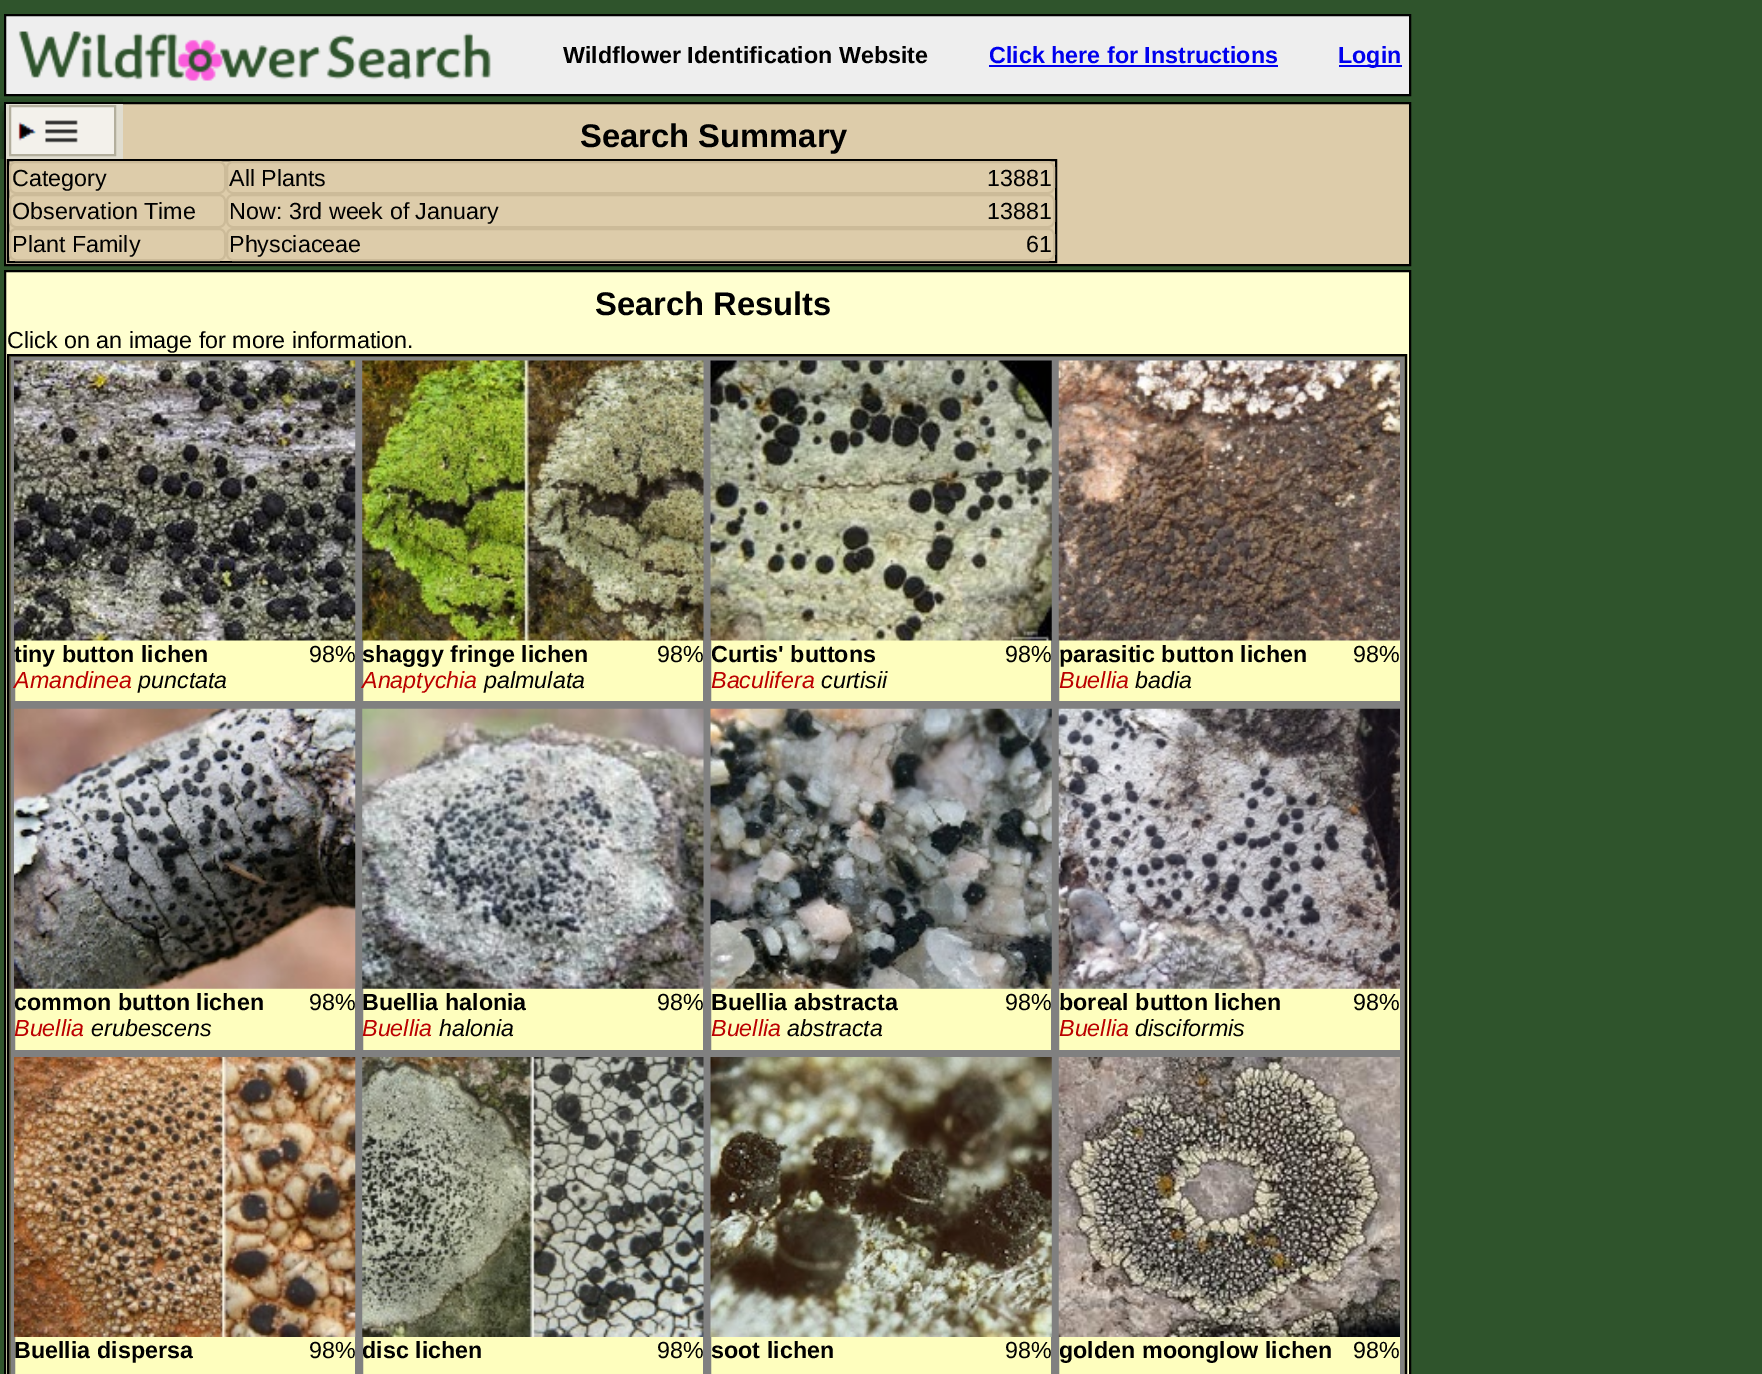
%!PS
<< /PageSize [1762 1374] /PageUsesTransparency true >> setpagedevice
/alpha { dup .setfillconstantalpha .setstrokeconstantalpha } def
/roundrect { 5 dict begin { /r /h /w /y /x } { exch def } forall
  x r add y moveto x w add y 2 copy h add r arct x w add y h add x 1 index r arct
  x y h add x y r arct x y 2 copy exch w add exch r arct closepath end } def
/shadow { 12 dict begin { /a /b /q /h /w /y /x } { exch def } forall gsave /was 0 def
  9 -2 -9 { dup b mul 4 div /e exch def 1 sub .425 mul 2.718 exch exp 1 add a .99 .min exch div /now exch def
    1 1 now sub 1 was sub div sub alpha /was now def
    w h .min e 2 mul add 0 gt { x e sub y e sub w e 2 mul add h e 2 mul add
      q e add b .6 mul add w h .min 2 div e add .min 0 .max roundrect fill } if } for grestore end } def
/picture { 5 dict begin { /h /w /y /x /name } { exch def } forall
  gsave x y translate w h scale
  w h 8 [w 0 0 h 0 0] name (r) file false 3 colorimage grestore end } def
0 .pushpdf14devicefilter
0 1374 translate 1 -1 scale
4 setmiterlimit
0.184 0.329 0.173 setrgbcolor
0 0 1762 1374 rectfill
0.933 setgray
newpath 5 15 moveto 1410 15 lineto 1410 95 lineto 5 95 lineto closepath gsave fill grestore
0 setgray
2 setlinewidth
stroke
(img1.rgb) 18 31 473 50 picture
/LiberationSans-Bold [23.3 0 0 -23.3 0 0] selectfont
563 63 moveto (Wildflower Identification Website) show
0 0 0.933 setrgbcolor
989 63 moveto (Click here for Instructions) show
989 65 289 2 rectfill
1339 65 63 2 rectfill
1338 63 moveto (Login) show
0.867 0.8 0.667 setrgbcolor
newpath 5 103 moveto 1410 103 lineto 1410 265 lineto 5 265 lineto closepath gsave fill grestore
0 setgray
stroke
8 160 1048 102 rectstroke
0.8 0.733 0.6 setrgbcolor
10 162 215 31 6 roundrect stroke
227 162 827 31 6 roundrect stroke
10 195 215 32 6 roundrect stroke
227 195 827 32 6 roundrect stroke
10 229 215 31 6 roundrect stroke
227 229 827 31 6 roundrect stroke
1 1 0.816 setrgbcolor
newpath 5 271 moveto 1410 271 lineto 1410 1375 lineto 5 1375 lineto closepath gsave fill grestore
0 setgray
stroke
0.4 0.4 0.298 setrgbcolor
newpath 8 355 moveto 1406 355 lineto 1406 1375 lineto 8 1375 lineto closepath gsave fill grestore
0 setgray
stroke
1 1 0.749 setrgbcolor
15 640 340 61 rectfill
0.502 setgray
4 setlinewidth
13 359 344 344 rectstroke
(img3.rgb) 14 360 342 281 picture
0.996 0.996 0.745 setrgbcolor
363 640 340 61 rectfill
0.502 setgray
361 359 344 344 rectstroke
(img4.rgb) 362 360 342 281 picture
0.996 0.996 0.745 setrgbcolor
15 988 340 62 rectfill
0.502 setgray
13 707 344 345 rectstroke
(img7.rgb) 14 708 342 281 picture
0.996 0.996 0.745 setrgbcolor
363 988 340 62 rectfill
0.502 setgray
361 707 344 345 rectstroke
(img8.rgb) 362 708 342 281 picture
0.996 0.996 0.745 setrgbcolor
15 1337 340 37 rectfill
0.502 setgray
13 1056 344 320 rectstroke
(img11.rgb) 14 1057 342 280 picture
0.996 0.996 0.745 setrgbcolor
363 1337 340 37 rectfill
0.502 setgray
361 1056 344 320 rectstroke
(img12.rgb) 362 1057 342 280 picture
gsave
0 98 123 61 rectclip
0 setgray
4 110 514 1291 0 9 0.53 shadow
grestore
0.878 0.867 0.816 setrgbcolor
6 104 117 55 rectfill
0.953 0.945 0.922 setrgbcolor
11 107 103 47 rectfill
(img2.rgb) 18 120 60 23 picture
0.702 0.686 0.616 setrgbcolor
2 setlinewidth
10 106 105 49 rectstroke
/LiberationSans-Bold [32.75 0 0 -32.75 0 0] selectfont
0 setgray
580 147 moveto (Search Summary) show
/LiberationSans-Regular [23.3 0 0 -23.3 0 0] selectfont
12 186 moveto (Category) show
229 186 moveto (All Plants) show
987 186 moveto (13881) show
12 219 moveto (Observation Time) show
229 219 moveto (Now: 3rd week of January) show
987 219 moveto (13881) show
12 252 moveto (Plant Family) show
229 252 moveto (Physciaceae) show
1026 252 moveto (61) show
/LiberationSans-Bold [32.75 0 0 -32.75 0 0] selectfont
595 315 moveto (Search Results) show
/LiberationSans-Regular [23.3 0 0 -23.3 0 0] selectfont
7 348 moveto (Click on an image for more information.) show
/LiberationSans-Bold [23.3 0 0 -23.3 0 0] selectfont
14 662 moveto (tiny button lichen) show
/LiberationSans-Regular [23.3 0 0 -23.3 0 0] selectfont
309 662 moveto (98%) show
/LiberationSans-Italic [23.3 0 0 -23.3 0 0] selectfont
0.733 0 0 setrgbcolor
14 688 moveto (Amandinea) show
0 setgray
138 688 moveto (punctata) show
/LiberationSans-Bold [23.3 0 0 -23.3 0 0] selectfont
362 662 moveto (shaggy fringe lichen) show
/LiberationSans-Regular [23.3 0 0 -23.3 0 0] selectfont
657 662 moveto (98%) show
/LiberationSans-Italic [23.3 0 0 -23.3 0 0] selectfont
0.733 0 0 setrgbcolor
362 688 moveto (Anaptychia) show
0 setgray
484 688 moveto (palmulata) show
0.996 0.996 0.745 setrgbcolor
711 640 340 61 rectfill
0.502 setgray
4 setlinewidth
709 359 344 344 rectstroke
(img5.rgb) 710 360 342 281 picture
/LiberationSans-Bold [23.3 0 0 -23.3 0 0] selectfont
0 setgray
711 662 moveto (Curtis' buttons) show
/LiberationSans-Regular [23.3 0 0 -23.3 0 0] selectfont
1005 662 moveto (98%) show
/LiberationSans-Italic [23.3 0 0 -23.3 0 0] selectfont
0.733 0 0 setrgbcolor
711 688 moveto (Baculifera) show
0 setgray
821 688 moveto (curtisii) show
0.996 0.996 0.745 setrgbcolor
1059 640 341 61 rectfill
0.502 setgray
1057 359 345 344 rectstroke
(img6.rgb) 1058 360 342 281 picture
/LiberationSans-Bold [23.3 0 0 -23.3 0 0] selectfont
0 setgray
1059 662 moveto (parasitic button lichen) show
/LiberationSans-Regular [23.3 0 0 -23.3 0 0] selectfont
1353 662 moveto (98%) show
/LiberationSans-Italic [23.3 0 0 -23.3 0 0] selectfont
0.733 0 0 setrgbcolor
1059 688 moveto (Buellia) show
0 setgray
1135 688 moveto (badia) show
/LiberationSans-Bold [23.3 0 0 -23.3 0 0] selectfont
14 1010 moveto (common button lichen) show
/LiberationSans-Regular [23.3 0 0 -23.3 0 0] selectfont
309 1010 moveto (98%) show
/LiberationSans-Italic [23.3 0 0 -23.3 0 0] selectfont
0.733 0 0 setrgbcolor
14 1036 moveto (Buellia) show
0 setgray
91 1036 moveto (erubescens) show
/LiberationSans-Bold [23.3 0 0 -23.3 0 0] selectfont
362 1010 moveto (Buellia halonia) show
/LiberationSans-Regular [23.3 0 0 -23.3 0 0] selectfont
657 1010 moveto (98%) show
/LiberationSans-Italic [23.3 0 0 -23.3 0 0] selectfont
0.733 0 0 setrgbcolor
362 1036 moveto (Buellia) show
0 setgray
439 1036 moveto (halonia) show
0.996 0.996 0.745 setrgbcolor
711 988 340 62 rectfill
0.502 setgray
709 707 344 345 rectstroke
(img9.rgb) 710 708 342 281 picture
/LiberationSans-Bold [23.3 0 0 -23.3 0 0] selectfont
0 setgray
711 1010 moveto (Buellia abstracta) show
/LiberationSans-Regular [23.3 0 0 -23.3 0 0] selectfont
1005 1010 moveto (98%) show
/LiberationSans-Italic [23.3 0 0 -23.3 0 0] selectfont
0.733 0 0 setrgbcolor
711 1036 moveto (Buellia) show
0 setgray
787 1036 moveto (abstracta) show
0.996 0.996 0.745 setrgbcolor
1059 988 341 62 rectfill
0.502 setgray
1057 707 345 345 rectstroke
(img10.rgb) 1058 708 342 281 picture
/LiberationSans-Bold [23.3 0 0 -23.3 0 0] selectfont
0 setgray
1059 1010 moveto (boreal button lichen) show
/LiberationSans-Regular [23.3 0 0 -23.3 0 0] selectfont
1353 1010 moveto (98%) show
/LiberationSans-Italic [23.3 0 0 -23.3 0 0] selectfont
0.733 0 0 setrgbcolor
1059 1036 moveto (Buellia) show
0 setgray
1135 1036 moveto (disciformis) show
/LiberationSans-Bold [23.3 0 0 -23.3 0 0] selectfont
14 1358 moveto (Buellia dispersa) show
/LiberationSans-Regular [23.3 0 0 -23.3 0 0] selectfont
309 1358 moveto (98%) show
/LiberationSans-Bold [23.3 0 0 -23.3 0 0] selectfont
362 1358 moveto (disc lichen) show
/LiberationSans-Regular [23.3 0 0 -23.3 0 0] selectfont
657 1358 moveto (98%) show
0.996 0.996 0.745 setrgbcolor
711 1337 340 37 rectfill
0.502 setgray
709 1056 344 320 rectstroke
(img13.rgb) 710 1057 342 280 picture
/LiberationSans-Bold [23.3 0 0 -23.3 0 0] selectfont
0 setgray
711 1358 moveto (soot lichen) show
/LiberationSans-Regular [23.3 0 0 -23.3 0 0] selectfont
1005 1358 moveto (98%) show
0.996 0.996 0.745 setrgbcolor
1059 1337 341 37 rectfill
0.502 setgray
1057 1056 345 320 rectstroke
(img14.rgb) 1058 1057 342 280 picture
/LiberationSans-Bold [23.3 0 0 -23.3 0 0] selectfont
0 setgray
1059 1358 moveto (golden moonglow lichen) show
/LiberationSans-Regular [23.3 0 0 -23.3 0 0] selectfont
1353 1358 moveto (98%) show
.poppdf14devicefilter showpage
